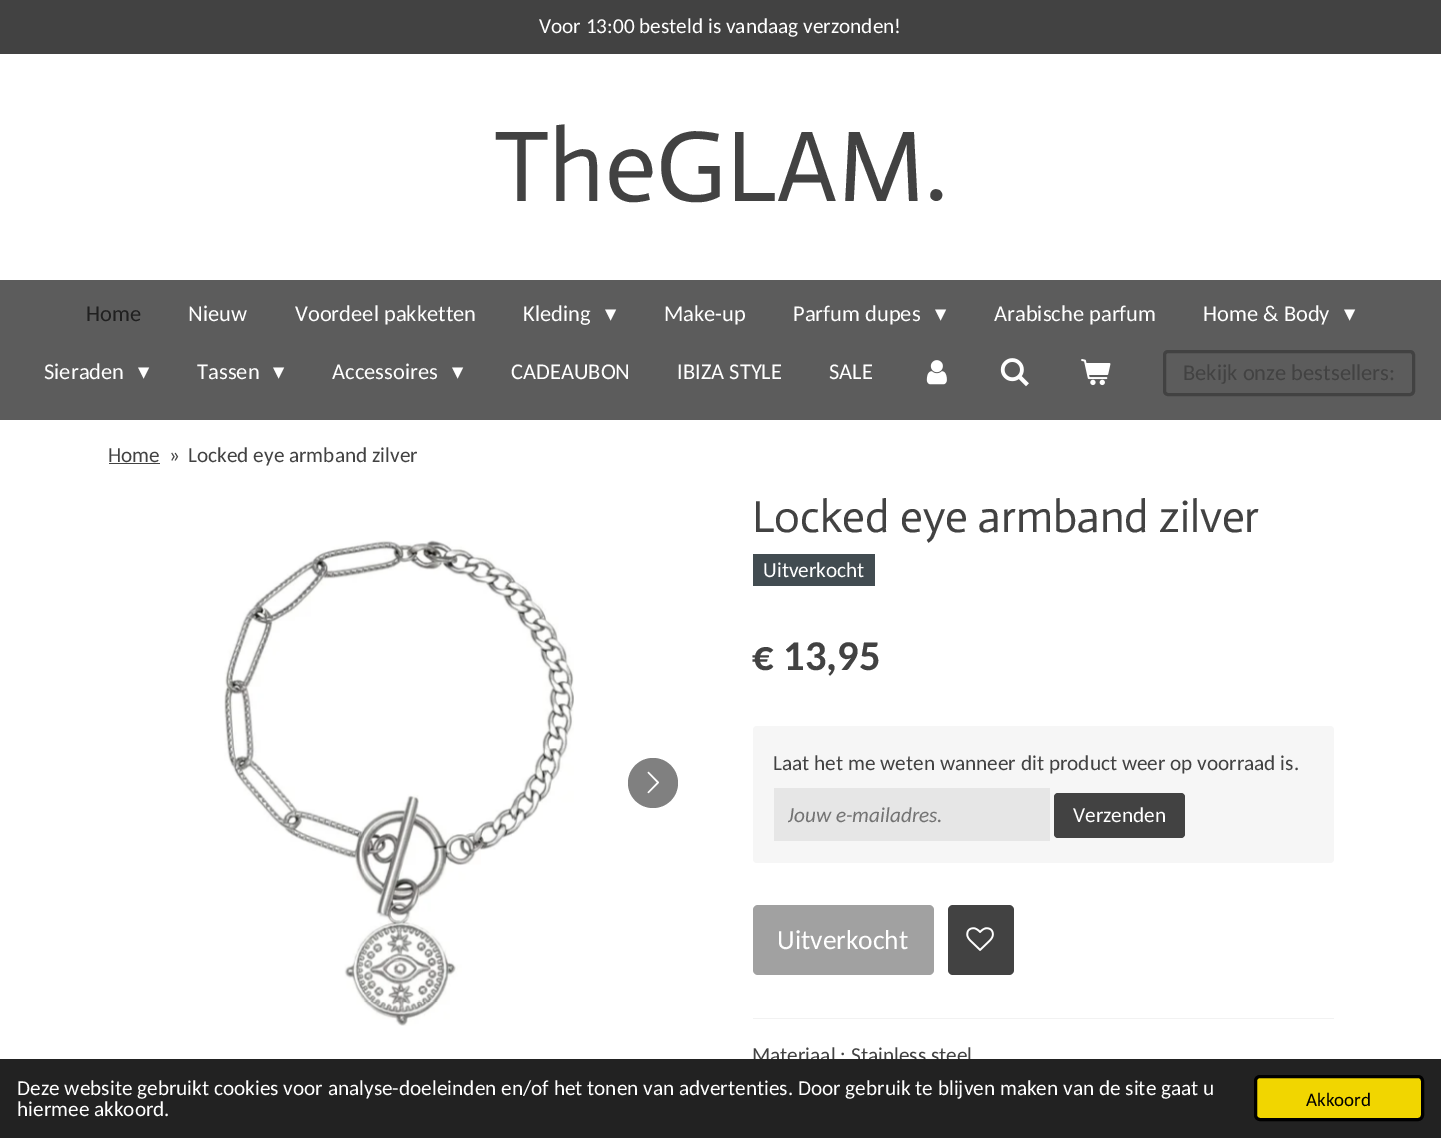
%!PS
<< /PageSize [1441 1138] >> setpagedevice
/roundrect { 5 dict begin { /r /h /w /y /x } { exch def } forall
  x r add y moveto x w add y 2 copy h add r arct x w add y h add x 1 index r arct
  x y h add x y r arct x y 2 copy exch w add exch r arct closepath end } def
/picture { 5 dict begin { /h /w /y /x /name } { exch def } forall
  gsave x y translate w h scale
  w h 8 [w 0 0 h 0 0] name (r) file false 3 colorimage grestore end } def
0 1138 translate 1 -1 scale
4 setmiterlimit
1 setgray
0 0 1441 1138 rectfill
0.259 setgray
0 0 1441 54 rectfill
/Carlito-Regular [21.25 0 0 -21.25 0 0] selectfont
1 setgray
539 33 moveto (Voor 13:00 besteld is vandaag verzonden!) show
/Actor-Regular [101.25 0 0 -101.25 0 0] selectfont
0.259 setgray
494 201 moveto (TheGLAM.) show
0.361 setgray
0 280 1441 140 rectfill
/Carlito-Regular [22.5 0 0 -22.5 0 0] selectfont
0.125 setgray
86 321 moveto (Home) show
1 setgray
188 321 moveto (Nieuw) show
295 321 moveto (Voordeel pakketten) show
523 321 moveto (Kleding) show
/DejaVuSans-Regular [22.5 0 0 -22.5 0 0] selectfont
605 321 moveto (▾) show
/Carlito-Regular [22.5 0 0 -22.5 0 0] selectfont
664 321 moveto (Make-up) show
793 321 moveto (Parfum dupes) show
/DejaVuSans-Regular [22.5 0 0 -22.5 0 0] selectfont
935 321 moveto (▾) show
/Carlito-Regular [22.5 0 0 -22.5 0 0] selectfont
994 321 moveto (Arabische parfum) show
1203 321 moveto (Home & Body) show
/DejaVuSans-Regular [22.5 0 0 -22.5 0 0] selectfont
1344 321 moveto (▾) show
/Carlito-Regular [22.5 0 0 -22.5 0 0] selectfont
44 379 moveto (Sieraden) show
/DejaVuSans-Regular [22.5 0 0 -22.5 0 0] selectfont
138 379 moveto (▾) show
/Carlito-Regular [22.5 0 0 -22.5 0 0] selectfont
197 379 moveto (Tassen) show
/DejaVuSans-Regular [22.5 0 0 -22.5 0 0] selectfont
273 379 moveto (▾) show
/Carlito-Regular [22.5 0 0 -22.5 0 0] selectfont
332 379 moveto (Accessoires) show
/DejaVuSans-Regular [22.5 0 0 -22.5 0 0] selectfont
452 379 moveto (▾) show
/Carlito-Regular [22.5 0 0 -22.5 0 0] selectfont
511 379 moveto (CADEAUBON) show
677 379 moveto (IBIZA STYLE) show
829 379 moveto (SALE) show
(img1.rgb) 926 360 21 25 picture
(img2.rgb) 1000 358 29 29 picture
(img3.rgb) 1081 359 30 27 picture
0.259 setgray
3 setlinewidth
1164.5 351.5 249 43 3.5 roundrect stroke
1183 380 moveto (Bekijk onze bestsellers:) show
/Carlito-Regular [21.25 0 0 -21.25 0 0] selectfont
108 462 moveto (Home) show
109 463 51 1 rectfill
169 462 moveto (») show
188 462 moveto (Locked eye armband zilver) show
(img4.rgb) 224 540 350 486 picture
0.502 setgray
newpath 653 783 25 0 360 arc closepath fill
(img5.rgb) 647 771 12 23 picture
/Actor-Regular [45 0 0 -45 0 0] selectfont
0.259 setgray
752 532 moveto (Locked eye armband zilver) show
0.259 0.298 0.318 setrgbcolor
753 554 122 32 rectfill
/Carlito-Regular [21.25 0 0 -21.25 0 0] selectfont
1 setgray
763 577 moveto (Uitverkocht) show
/Carlito-Bold [42.5 0 0 -42.5 0 0] selectfont
0.259 setgray
752 670 moveto (€ 13,95) show
0.965 setgray
753 726 581 137 4 roundrect fill
/Carlito-Regular [21.25 0 0 -21.25 0 0] selectfont
0.259 setgray
773 770 moveto (Laat het me weten wanneer dit product weer op voorraad is.) show
0.902 setgray
774 788 276 53 rectfill
gsave
788 801 248 27 rectclip
/Carlito-Italic [21.25 0 0 -21.25 0 0] selectfont
0.451 setgray
787 822 moveto (Jouw e-mailadres.) show
grestore
0.259 setgray
1054 793 131 45 4 roundrect fill
1 setgray
1073 822 moveto (Verzenden) show
0.631 setgray
753 905 181 70 5 roundrect fill
/Carlito-Regular [27.5 0 0 -27.5 0 0] selectfont
1 setgray
777 949 moveto (Uitverkocht) show
0.259 setgray
948 905 66 70 5 roundrect fill
(img6.rgb) 966 927 28 24 picture
0.949 setgray
753 1018 581 1 rectfill
/Carlito-Regular [21.25 0 0 -21.25 0 0] selectfont
0.259 setgray
752 1062 moveto (Materiaal : Stainless steel) show
0.133 setgray
0 1059 1441 79 rectfill
1 setgray
17 1095 moveto (Deze website gebruikt cookies voor analyse-doeleinden en/of het tonen van advertenties. Door gebruik te blijven maken van de site gaat u) show
17 1116 moveto (hiermee akkoord.) show
0.945 0.839 0 setrgbcolor
1255.5 1076.5 167 43 4.5 roundrect gsave fill grestore
0 setgray
stroke
/Carlito-Regular [19 0 0 -19 0 0] selectfont
1306 1106 moveto (Akkoord) show
showpage
